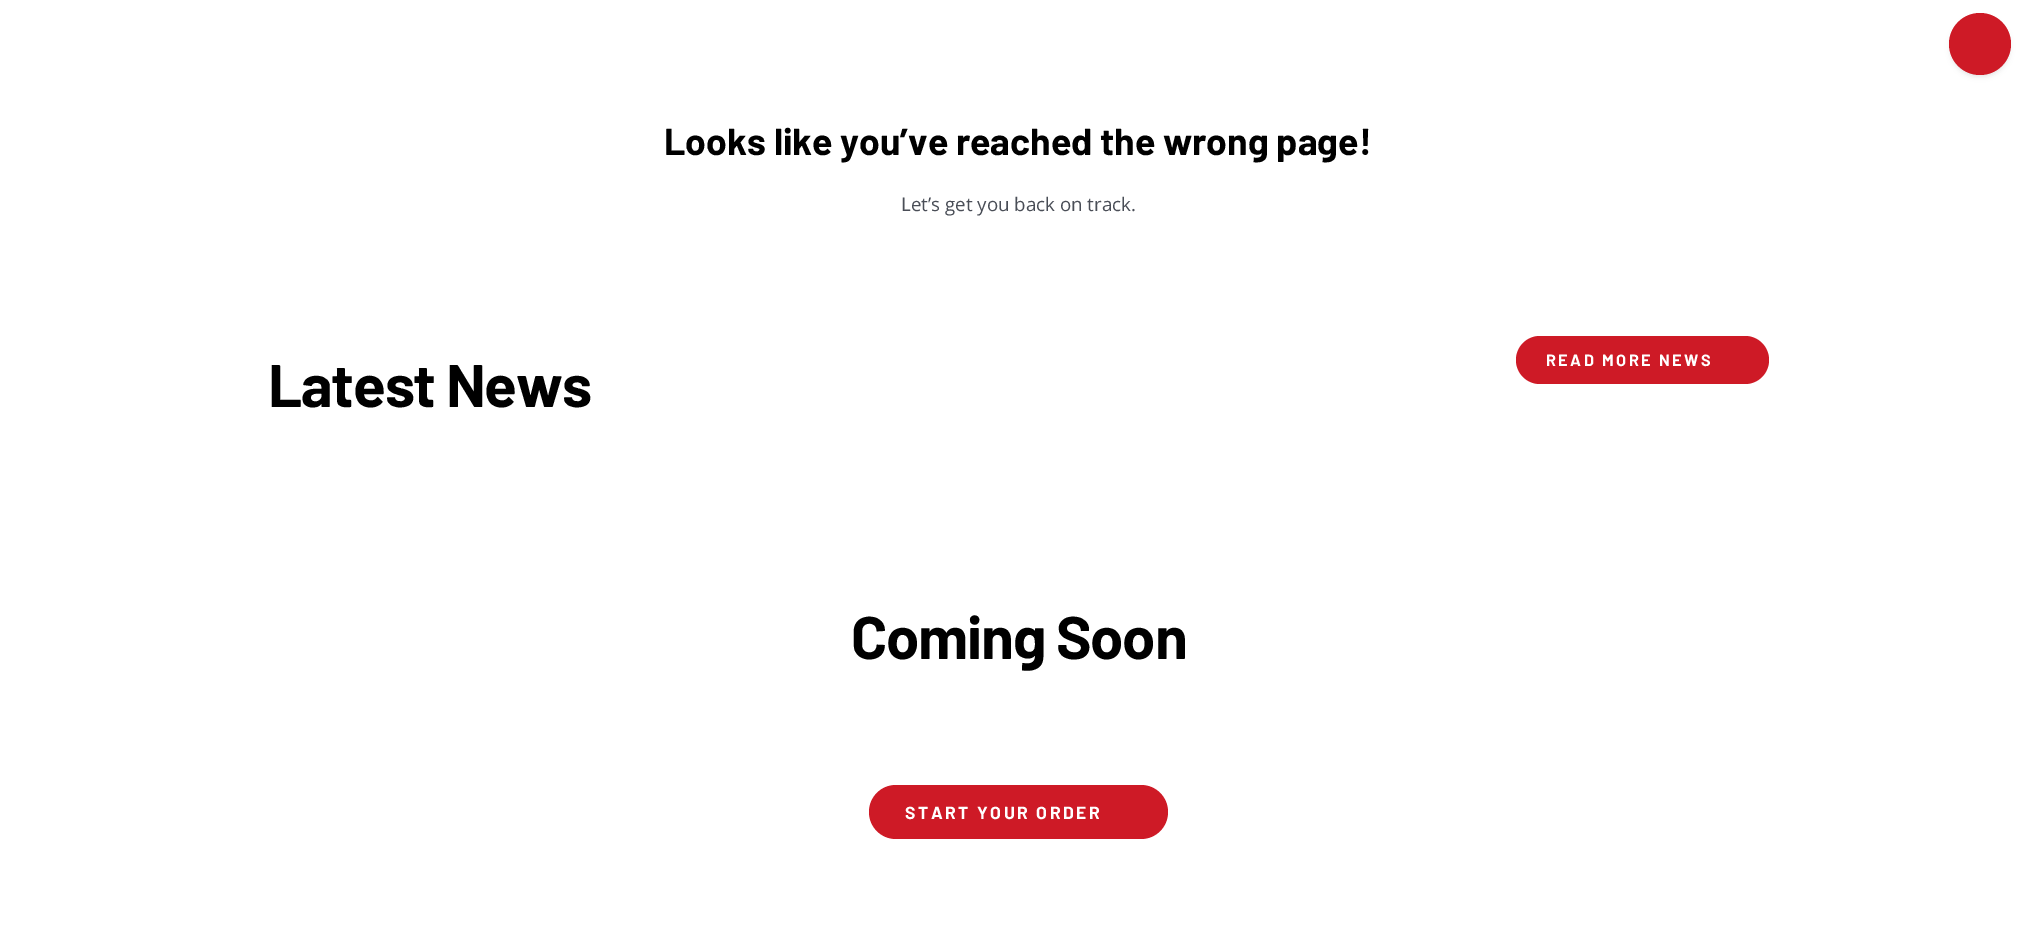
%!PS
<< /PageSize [2036 948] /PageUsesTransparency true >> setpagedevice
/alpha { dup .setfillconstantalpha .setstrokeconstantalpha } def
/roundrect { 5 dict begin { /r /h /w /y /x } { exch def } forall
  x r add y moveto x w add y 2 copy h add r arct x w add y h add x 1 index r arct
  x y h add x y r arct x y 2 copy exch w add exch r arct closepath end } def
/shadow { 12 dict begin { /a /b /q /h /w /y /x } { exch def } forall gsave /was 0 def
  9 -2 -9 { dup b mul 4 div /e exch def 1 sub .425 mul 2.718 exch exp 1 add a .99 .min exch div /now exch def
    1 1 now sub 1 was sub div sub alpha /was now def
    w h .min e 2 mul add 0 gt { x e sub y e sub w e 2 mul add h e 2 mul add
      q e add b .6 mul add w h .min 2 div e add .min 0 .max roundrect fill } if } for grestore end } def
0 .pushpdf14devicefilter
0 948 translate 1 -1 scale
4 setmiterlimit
1 setgray
0 0 2036 948 rectfill
0 setgray
1951 19 58 57 28.5 3 0.14 shadow
0.808 0.102 0.149 setrgbcolor
newpath 1980 44 31 0 360 arc closepath fill
/Barlow-Bold [37.5 0 0 -37.5 0 0] selectfont
0 setgray
664 155 moveto (Looks like you’ve reached the wrong page!) show
/OpenSans-Regular [18.75 0 0 -18.75 0 0] selectfont
0.29 0.306 0.341 setrgbcolor
901 211 moveto (Let’s get you back on track.) show
0.808 0.102 0.149 setrgbcolor
1516 336 253 48 24 roundrect fill
/Barlow-Bold [16.25 0 0 -16.25 0 0] selectfont
1 setgray
1546 366 moveto 2.5 0 (READ MORE NEWS) ashow
/Barlow-Bold [60 0 0 -60 0 0] selectfont
0 setgray
268 407 moveto -1.25 0 (Latest News) ashow
851 659 moveto -1.25 0 (Coming Soon) ashow
0.808 0.102 0.149 setrgbcolor
869 785 299 54 27 roundrect fill
/Barlow-Bold [17.5 0 0 -17.5 0 0] selectfont
1 setgray
905 819 moveto 2.5 0 (START YOUR ORDER) ashow
.poppdf14devicefilter showpage
